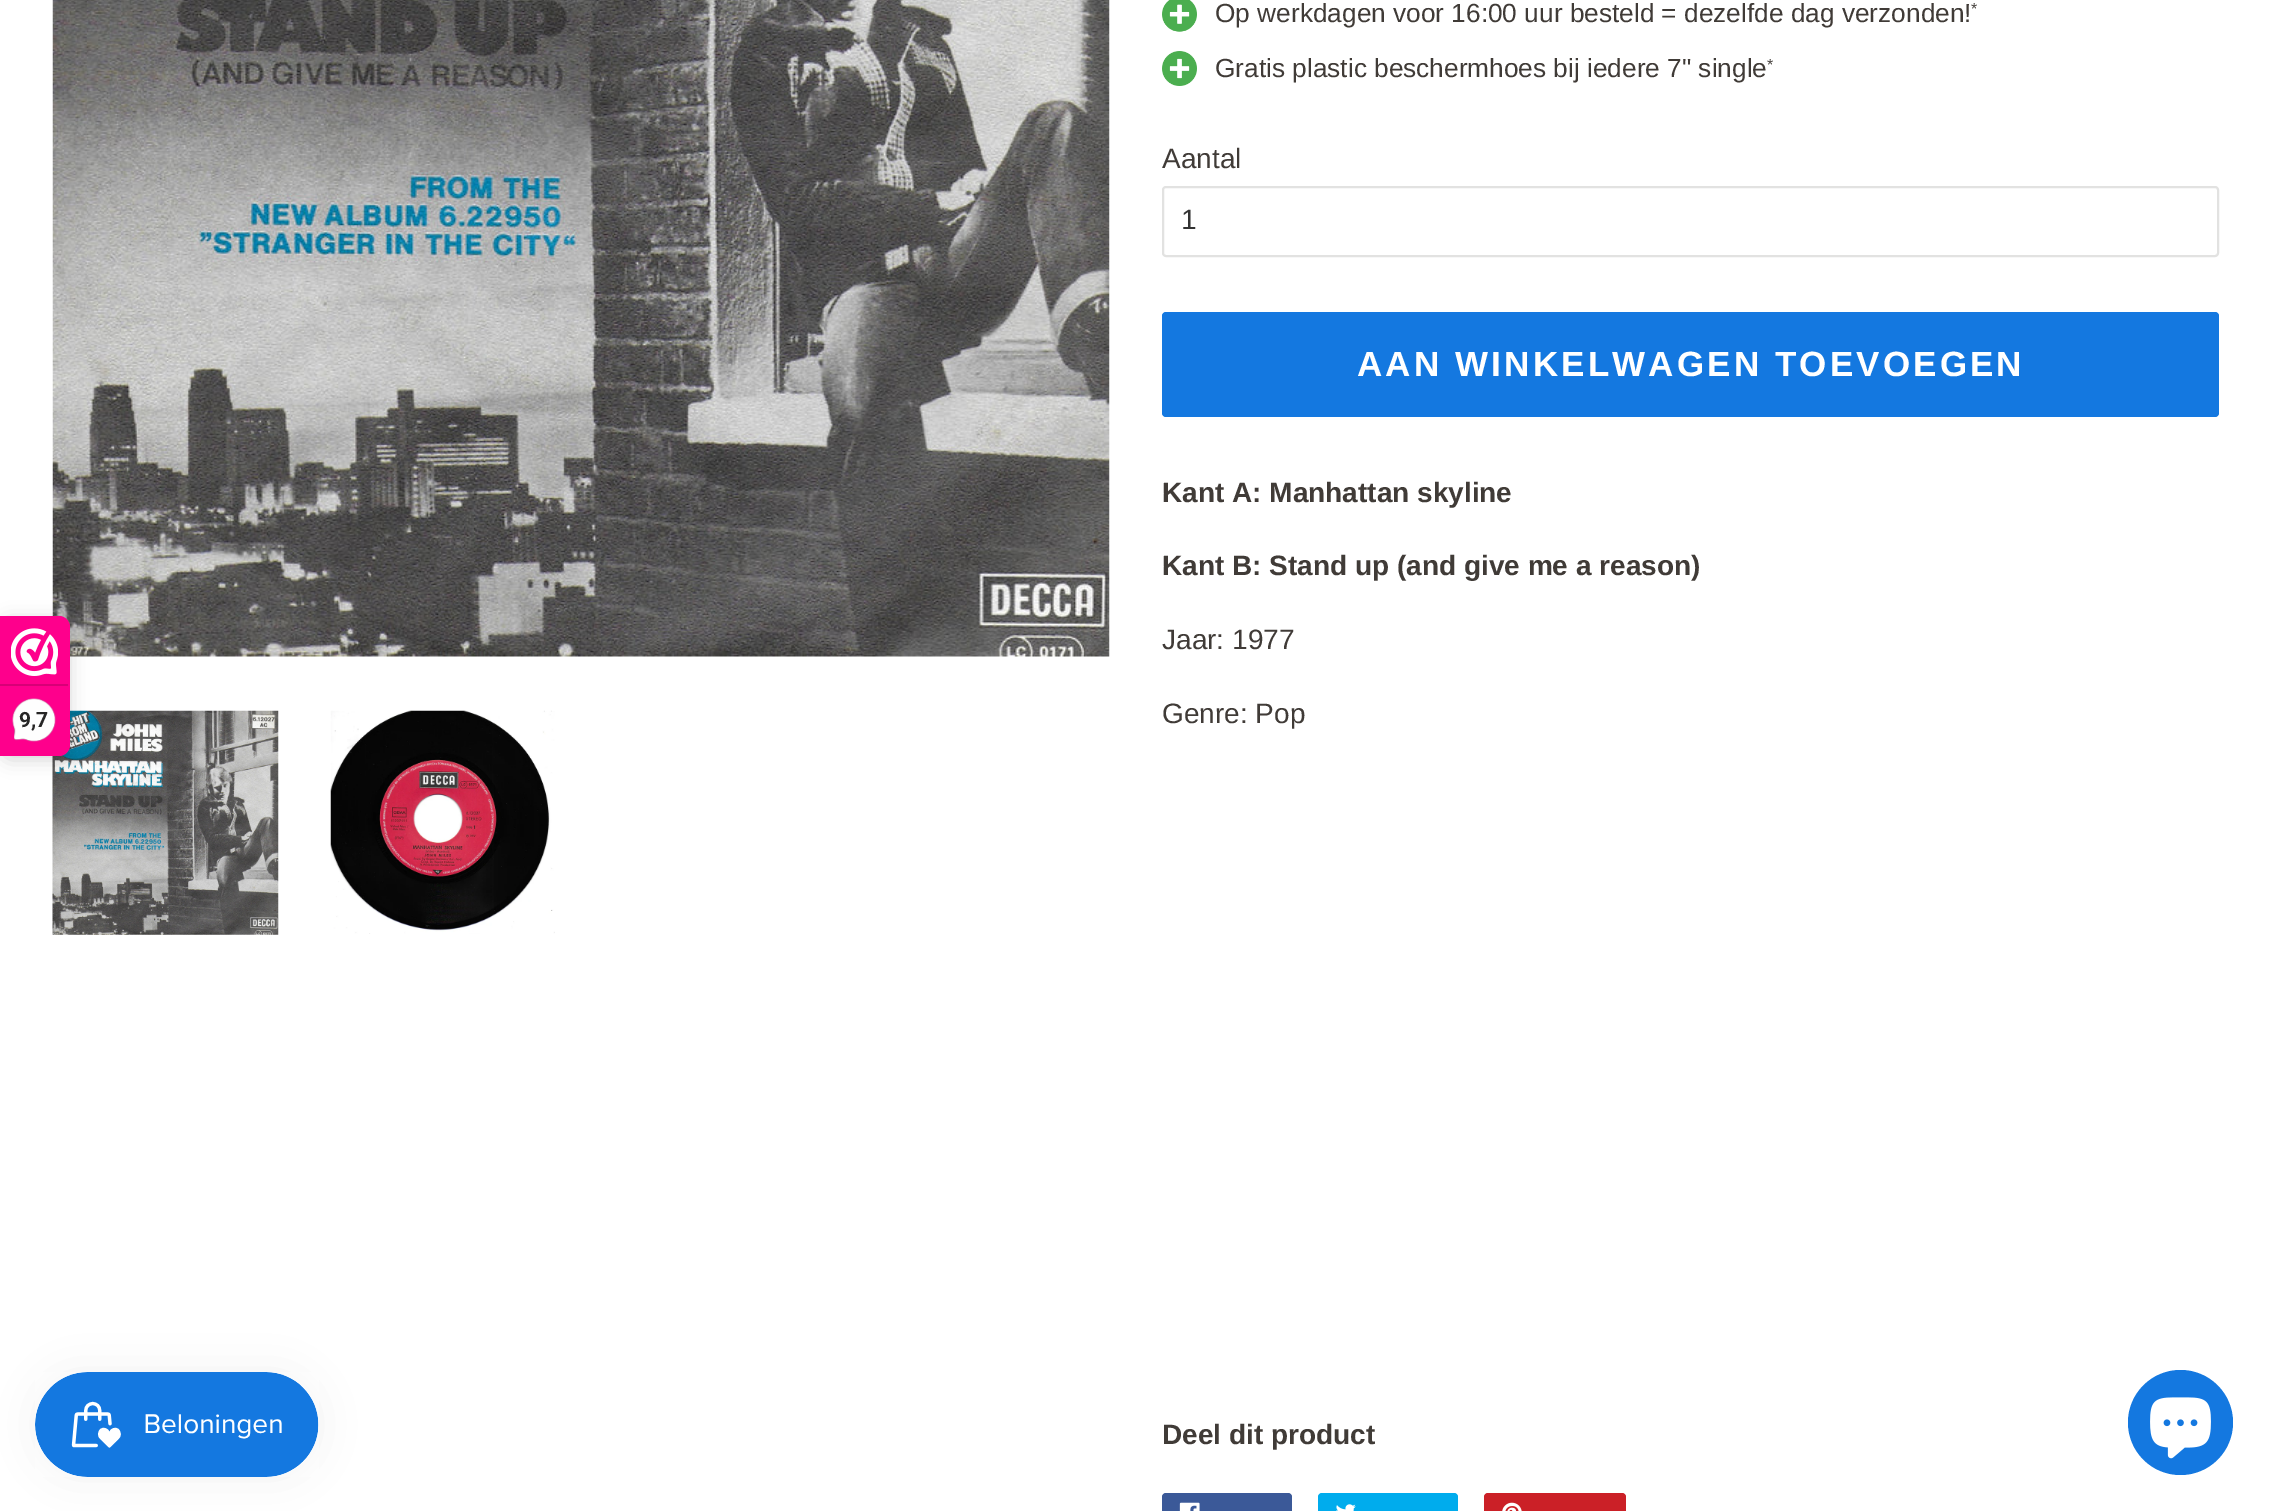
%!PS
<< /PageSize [2270 1511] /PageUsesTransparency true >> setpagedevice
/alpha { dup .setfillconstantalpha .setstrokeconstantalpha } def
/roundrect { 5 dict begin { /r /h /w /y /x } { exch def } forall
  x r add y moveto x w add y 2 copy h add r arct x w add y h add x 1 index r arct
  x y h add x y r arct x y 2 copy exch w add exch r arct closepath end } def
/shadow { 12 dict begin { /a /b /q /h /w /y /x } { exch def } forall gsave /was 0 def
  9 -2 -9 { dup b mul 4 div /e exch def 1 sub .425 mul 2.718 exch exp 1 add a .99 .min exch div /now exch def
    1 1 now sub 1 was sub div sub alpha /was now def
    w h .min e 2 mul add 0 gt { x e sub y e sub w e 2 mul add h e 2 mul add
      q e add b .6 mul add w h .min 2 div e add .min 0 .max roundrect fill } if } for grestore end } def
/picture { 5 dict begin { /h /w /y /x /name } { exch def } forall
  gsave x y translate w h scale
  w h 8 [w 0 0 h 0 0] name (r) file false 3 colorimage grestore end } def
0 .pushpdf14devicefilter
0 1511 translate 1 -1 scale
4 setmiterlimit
1 setgray
0 0 2270 1511 rectfill
(img3.rgb) 52 0 1058 657 picture
(img4.rgb) 52 710 227 225 picture
0 setgray
0 620 70 140 11 9 0.15 shadow
0.996 0 0.549 setrgbcolor
newpath 0 616 moveto 59 616 lineto 65 616 70 621 70 627 curveto 70 745 lineto 70 751 65 756 59 756 curveto 0 756 lineto closepath fill
(img1.rgb) 11 628 47 48 picture
0.847 0 0.467 setrgbcolor
0 684 68 2 rectfill
(img2.rgb) 12 698 44 44 picture
/Roboto-Bold [21 0 0 -21 0 0] selectfont
0.153 0.149 0.149 setrgbcolor
19 727 moveto (9,7) show
(img5.rgb) 330 710 225 224 picture
(img6.rgb) 1162 0 35 32 picture
/LiberationSans-Regular [26.25 0 0 -26.25 0 0] selectfont
0.251 0.231 0.216 setrgbcolor
1215 22 moveto (Op werkdagen voor 16:00 uur besteld = dezelfde dag verzonden!) show
/LiberationSans-Regular [16 0 0 -16 0 0] selectfont
1971 14 moveto (*) show
(img7.rgb) 1162 51 35 35 picture
/LiberationSans-Regular [26.25 0 0 -26.25 0 0] selectfont
1215 77 moveto (Gratis plastic beschermhoes bij iedere 7" single) show
/LiberationSans-Regular [16 0 0 -16 0 0] selectfont
1767 70 moveto (*) show
/LiberationSans-Regular [28 0 0 -28 0 0] selectfont
1162 168 moveto (Aantal) show
0.886 0.886 0.882 setrgbcolor
2 setlinewidth
1163 187 1055 69 3 roundrect stroke
0.2 setgray
1181 229 moveto (1) show
0.078 0.471 0.878 setrgbcolor
1162 312 1057 105 4 roundrect fill
/LiberationSans-Bold [35 0 0 -35 0 0] selectfont
1 setgray
1357 376 moveto 3.15 0 (AAN WINKELWAGEN TOEVOEGEN) ashow
/LiberationSans-Bold [28 0 0 -28 0 0] selectfont
0.251 0.231 0.216 setrgbcolor
1162 502 moveto (Kant A: Manhattan skyline) show
1162 575 moveto (Kant B: Stand up \(and give me a reason\)) show
/LiberationSans-Regular [28 0 0 -28 0 0] selectfont
1162 649 moveto (Jaar: 1977) show
1162 723 moveto (Genre: Pop) show
/LiberationSans-Bold [28 0 0 -28 0 0] selectfont
1162 1444 moveto (Deel dit product) show
0.231 0.349 0.596 setrgbcolor
1162 1493 130 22 4 roundrect fill
(img8.rgb) 1179 1502 21 9 picture
0 0.675 0.929 setrgbcolor
1318 1493 140 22 4 roundrect fill
(img9.rgb) 1336 1504 20 7 picture
0.796 0.125 0.153 setrgbcolor
1484 1493 142 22 4 roundrect fill
(img10.rgb) 1502 1502 20 9 picture
0 setgray
35 1372 284 105 52.5 22 0.05 shadow
(img11.rgb) 35 1372 284 105 picture
0.078 0.471 0.878 setrgbcolor
newpath 2180.5 1422.5 52.5 0 360 arc closepath fill
(img12.rgb) 2150 1397 61 62 picture
.poppdf14devicefilter showpage
